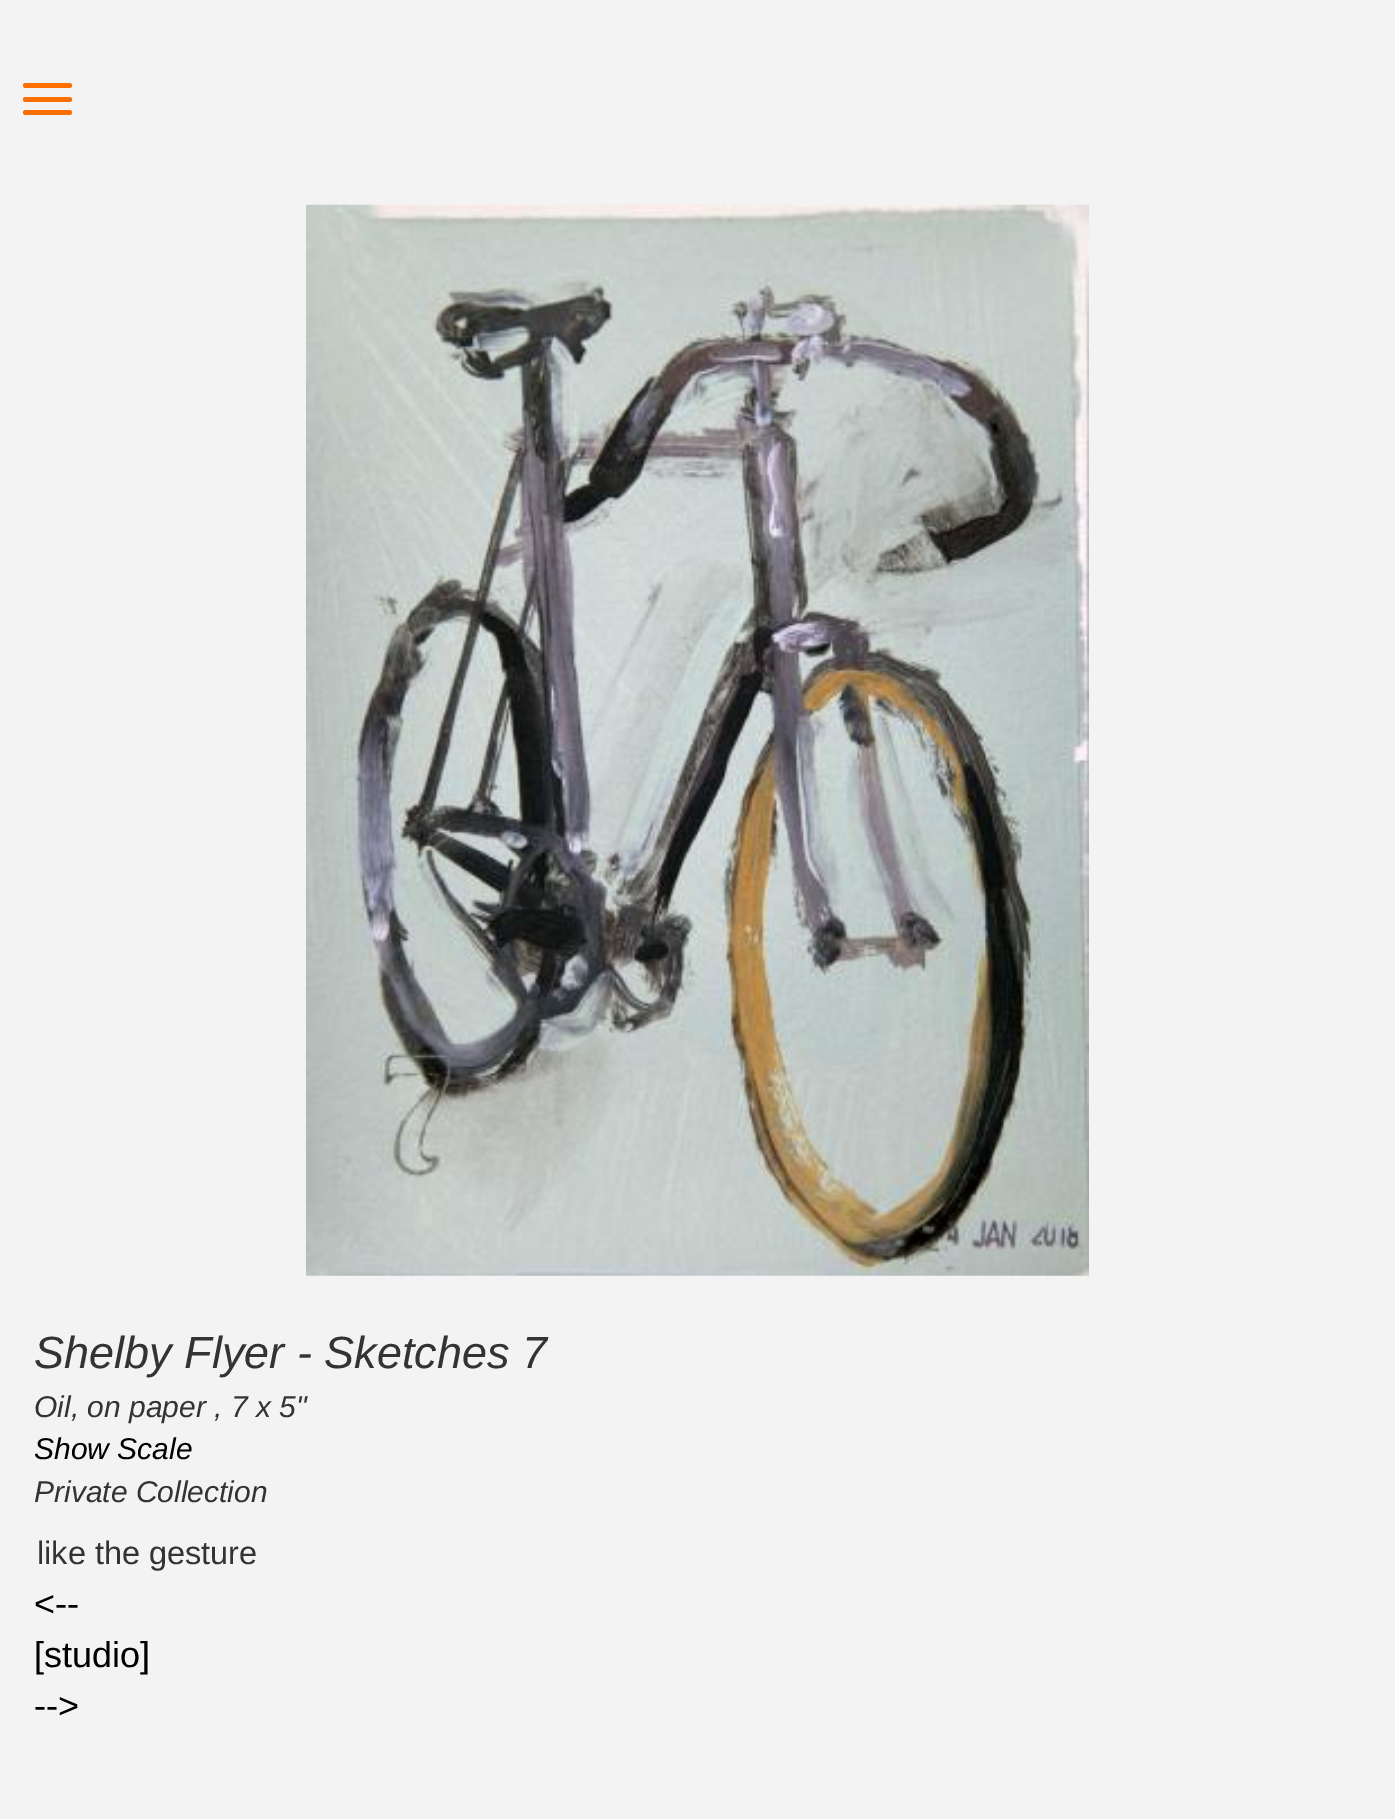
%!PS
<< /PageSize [1395 1819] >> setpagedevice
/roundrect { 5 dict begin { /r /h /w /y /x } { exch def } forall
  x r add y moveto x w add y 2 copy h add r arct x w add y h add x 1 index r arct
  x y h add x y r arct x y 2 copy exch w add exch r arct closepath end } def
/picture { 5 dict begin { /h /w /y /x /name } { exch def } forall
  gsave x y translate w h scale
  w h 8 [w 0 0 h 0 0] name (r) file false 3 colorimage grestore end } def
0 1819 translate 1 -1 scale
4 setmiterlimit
0.953 setgray
0 0 1395 1819 rectfill
1 0.435 0 setrgbcolor
23 83 49 5 2.5 roundrect fill
23 97 49 5 2.5 roundrect fill
23 110 49 5 2.5 roundrect fill
(img1.rgb) 306 204 783 1072 picture
/LiberationSans-Italic [45 0 0 -45 0 0] selectfont
0.2 setgray
34 1368 moveto (Shelby Flyer - Sketches 7) show
/LiberationSans-Italic [30 0 0 -30 0 0] selectfont
34 1417 moveto (Oil, on paper , 7 x 5") show
0 setgray
34 1459 moveto (Show Scale) show
0.2 setgray
34 1502 moveto (Private Collection) show
/LiberationSans-Regular [32.5 0 0 -32.5 0 0] selectfont
37 1564 moveto (like the gesture) show
/LiberationSans-Regular [36 0 0 -36 0 0] selectfont
0 setgray
34 1616 moveto (<--) show
34 1667 moveto ([studio]) show
34 1718 moveto (-->) show
showpage
